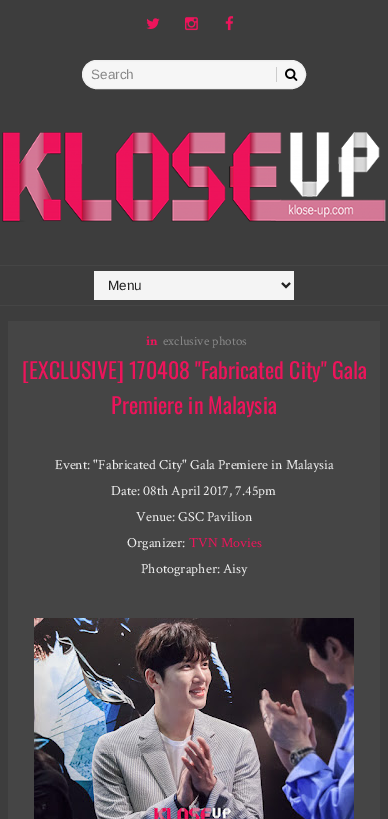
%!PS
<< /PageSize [388 819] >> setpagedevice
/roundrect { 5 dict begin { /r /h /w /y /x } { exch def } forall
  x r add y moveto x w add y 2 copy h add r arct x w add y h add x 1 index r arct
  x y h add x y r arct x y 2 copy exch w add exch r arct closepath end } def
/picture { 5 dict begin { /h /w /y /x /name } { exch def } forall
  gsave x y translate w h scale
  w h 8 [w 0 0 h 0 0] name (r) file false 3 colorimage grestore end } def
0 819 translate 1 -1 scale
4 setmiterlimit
0.239 setgray
0 0 388 819 rectfill
(img1.rgb) 146 18 14 11 picture
(img2.rgb) 185 17 13 14 picture
(img3.rgb) 225 16 9 15 picture
0.965 setgray
82.5 60.5 223 28 14 roundrect gsave fill grestore
0.933 setgray
stroke
0.8 setgray
276 67 1 15 rectfill
/LiberationSans-Regular [13.5 0 0 -13.5 0 0] selectfont
0.533 setgray
91 79 moveto (Search) show
(img4.rgb) 285 68 13 13 picture
(img5.rgb) 2 132 384 90 picture
0.271 setgray
0 265 388 1 rectfill
0 305 388 1 rectfill
0.957 setgray
94 271 200 29 rectfill
0.133 setgray
2 setlinewidth
newpath 282 283 moveto 286 287 lineto 290 283 lineto stroke
108 290 moveto (Menu) show
0.271 setgray
8 321 372 498 rectfill
/CrimsonText-Bold [13 0 0 -13 0 0] selectfont
0.929 0.078 0.357 setrgbcolor
146 345 moveto (in) show
/CrimsonText-Regular [13 0 0 -13 0 0] selectfont
0.533 setgray
163 345 moveto (exclusive photos) show
/Oswald-Regular [22 0 0 -22 0 0] selectfont
0.929 0.078 0.357 setrgbcolor
22 379 moveto ([EXCLUSIVE] 170408 "Fabricated City" Gala) show
111 414 moveto (Premiere in Malaysia) show
/CrimsonText-Regular [14 0 0 -14 0 0] selectfont
0.933 setgray
55 469 moveto (Event: "Fabricated City" Gala Premiere in Malaysia) show
111 495 moveto (Date: 08th April 2017, 7.45pm) show
136 521 moveto (Venue: GSC Pavilion) show
127 547 moveto (Organizer:) show
0.929 0.078 0.357 setrgbcolor
189 547 moveto (TVN Movies) show
0.933 setgray
141 573 moveto (Photographer: Aisy) show
(img6.rgb) 34 618 320 201 picture
showpage
